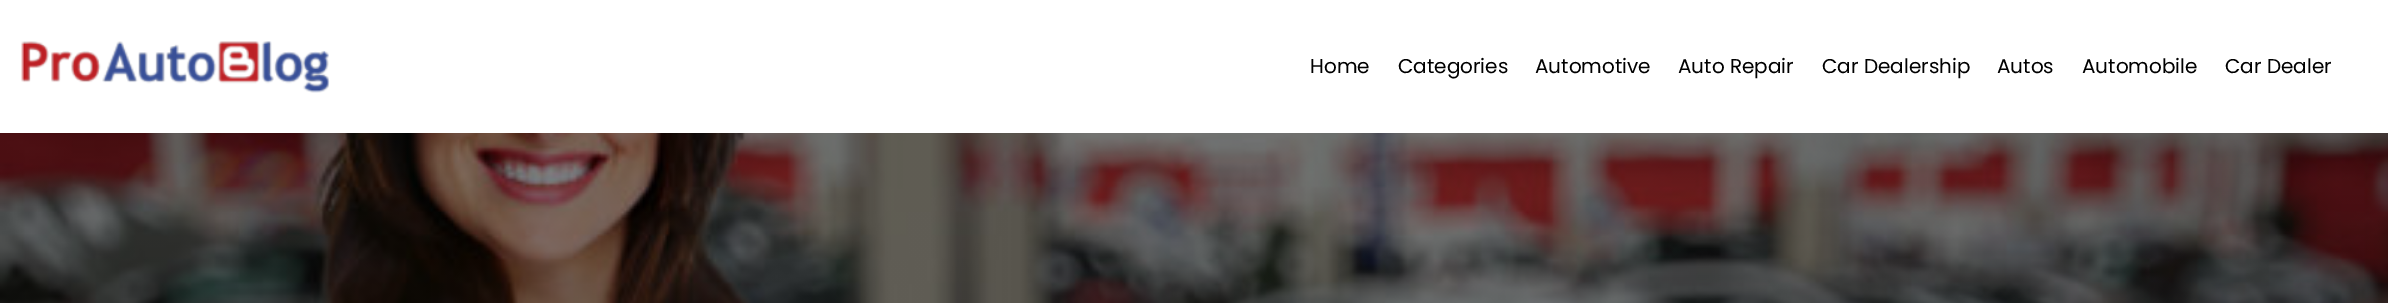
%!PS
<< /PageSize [2388 303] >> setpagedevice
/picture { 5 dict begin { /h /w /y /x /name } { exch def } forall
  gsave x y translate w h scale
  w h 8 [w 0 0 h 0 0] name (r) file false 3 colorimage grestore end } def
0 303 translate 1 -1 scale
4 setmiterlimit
1 setgray
0 0 2388 303 rectfill
(img1.rgb) 21 41 309 52 picture
/Poppins-Regular [20 0 0 -20 0 0] selectfont
0 setgray
1310 73 moveto (Home) show
1398 73 moveto (Categories) show
1535 73 moveto (Automotive) show
1678 73 moveto (Auto Repair) show
1822 73 moveto (Car Dealership) show
1997 73 moveto (Autos) show
2082 73 moveto (Automobile) show
2225 73 moveto (Car Dealer) show
(img2.rgb) 0 133 2388 170 picture
showpage
